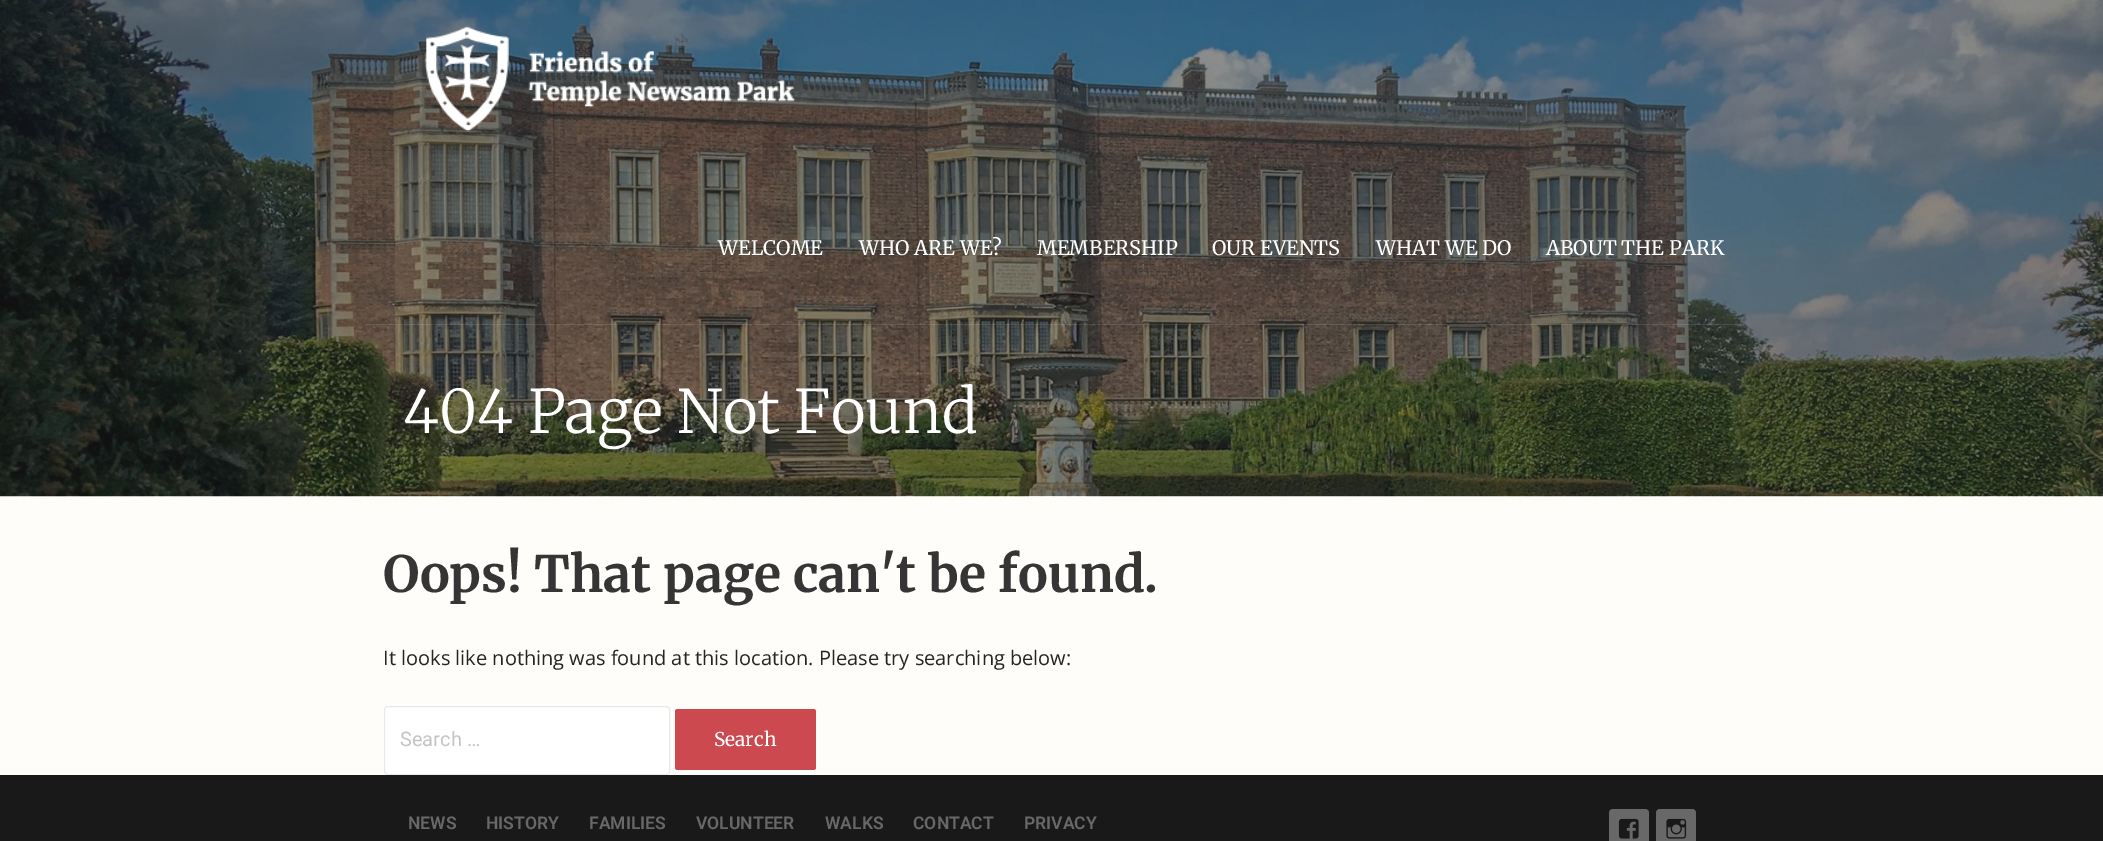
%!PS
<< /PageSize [2103 841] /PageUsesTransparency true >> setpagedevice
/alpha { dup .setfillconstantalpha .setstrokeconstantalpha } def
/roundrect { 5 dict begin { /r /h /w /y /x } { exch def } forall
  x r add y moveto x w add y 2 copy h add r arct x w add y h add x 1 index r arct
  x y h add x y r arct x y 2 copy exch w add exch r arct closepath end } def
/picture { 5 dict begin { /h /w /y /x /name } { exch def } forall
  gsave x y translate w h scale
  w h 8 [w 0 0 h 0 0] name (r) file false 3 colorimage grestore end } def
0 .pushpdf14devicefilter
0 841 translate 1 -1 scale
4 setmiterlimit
1 0.992 0.976 setrgbcolor
0 0 2103 841 rectfill
(img1.rgb) 0 0 2103 497 picture
0.1 alpha
1 setgray
365 324 1375 1 rectfill
1 alpha
(img2.rgb) 424 26 372 106 picture
/Merriweather-Regular [20 0 0 -20 0 0] selectfont
718 255 moveto (WELCOME) show
859 255 moveto (WHO ARE WE?) show
1037 255 moveto (MEMBERSHIP) show
1212 255 moveto (OUR EVENTS) show
1376 255 moveto (WHAT WE DO) show
1546 255 moveto (ABOUT THE PARK) show
/Merriweather-Light [60 0 0 -60 0 0] selectfont
403 433 moveto (404 Page Not Found) show
/Merriweather-Bold [50 0 0 -50 0 0] selectfont
0.208 setgray
383 592 moveto (Oops! That page can't be found.) show
/OpenSans-Regular [20 0 0 -20 0 0] selectfont
0.145 setgray
383 665 moveto (It looks like nothing was found at this location. Please try searching below:) show
1 setgray
384.5 706.5 285 68 3.5 roundrect gsave fill grestore
0.914 setgray
stroke
/Roboto-Regular [20 0 0 -20 0 0] selectfont
0.769 setgray
400 746 moveto (Search …) show
0.8 0.286 0.31 setrgbcolor
675 709 141 61 2.5 roundrect fill
/Merriweather-Regular [19 0 0 -19 0 0] selectfont
1 setgray
714 746 moveto (Search) show
0.098 setgray
0 775 2103 66 rectfill
/Roboto-SemiBold [17.5 0 0 -17.5 0 0] selectfont
0.408 setgray
408 829 moveto (NEWS) show
486 829 moveto (HISTORY) show
589 829 moveto (FAMILIES) show
696 829 moveto (VOLUNTEER) show
825 829 moveto (WALKS) show
913 829 moveto (CONTACT) show
1024 829 moveto (PRIVACY) show
1609 809 40 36 4 roundrect fill
(img3.rgb) 1618 818 21 21 picture
1656 809 40 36 4 roundrect fill
(img4.rgb) 1666 818 21 21 picture
.poppdf14devicefilter showpage
